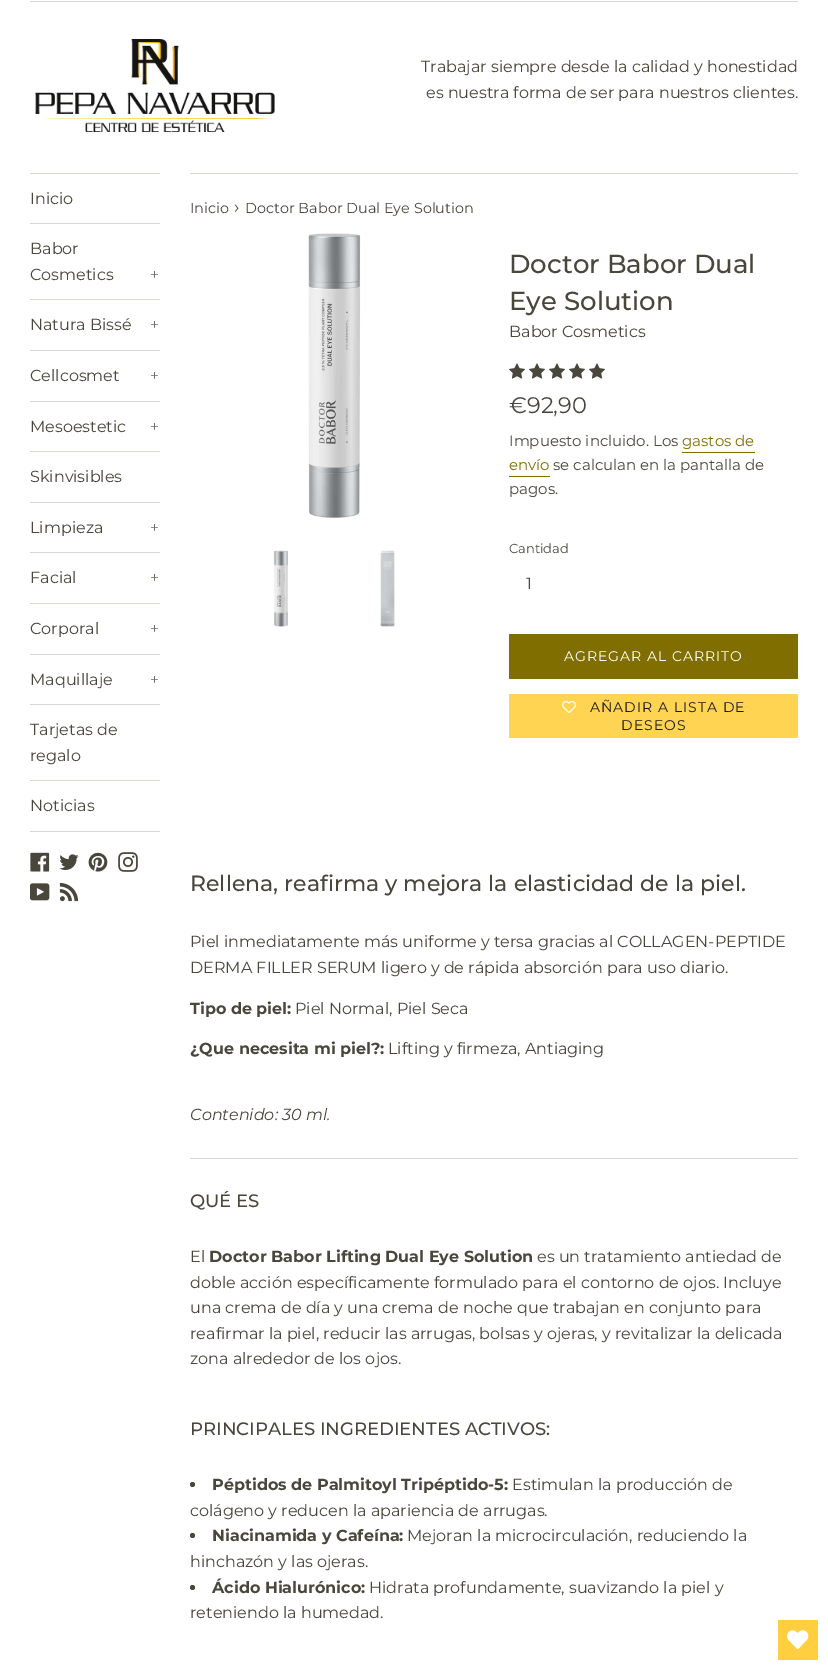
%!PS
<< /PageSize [828 1670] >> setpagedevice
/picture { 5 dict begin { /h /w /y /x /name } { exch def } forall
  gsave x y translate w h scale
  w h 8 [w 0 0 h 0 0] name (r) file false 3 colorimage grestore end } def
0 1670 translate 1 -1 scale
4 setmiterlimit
1 setgray
0 0 828 1670 rectfill
0.843 0.847 0.824 setrgbcolor
30 1 768 1 rectfill
(img1.rgb) 35 39 240 93 picture
/Montserrat-Regular [16 0 0 -16 0 0] selectfont
0.286 0.278 0.235 setrgbcolor
421 72 moveto (Trabajar siempre desde la calidad y honestidad) show
426 98 moveto (es nuestra forma de ser para nuestros clientes.) show
0.843 0.847 0.824 setrgbcolor
30 173 130 1 rectfill
30 223 130 1 rectfill
0.286 0.278 0.235 setrgbcolor
30 204 moveto (Inicio) show
0.843 0.847 0.824 setrgbcolor
30 299 130 1 rectfill
0.286 0.278 0.235 setrgbcolor
30 254 moveto (Babor) show
30 280 moveto (Cosmetics) show
0.427 0.424 0.388 setrgbcolor
150 280 moveto (+) show
0.843 0.847 0.824 setrgbcolor
30 350 130 1 rectfill
0.286 0.278 0.235 setrgbcolor
30 330 moveto (Natura Bissé) show
0.427 0.424 0.388 setrgbcolor
150 330 moveto (+) show
0.843 0.847 0.824 setrgbcolor
30 401 130 1 rectfill
0.286 0.278 0.235 setrgbcolor
30 381 moveto (Cellcosmet) show
0.427 0.424 0.388 setrgbcolor
150 381 moveto (+) show
0.843 0.847 0.824 setrgbcolor
30 451 130 1 rectfill
0.286 0.278 0.235 setrgbcolor
30 432 moveto (Mesoestetic) show
0.427 0.424 0.388 setrgbcolor
150 432 moveto (+) show
0.843 0.847 0.824 setrgbcolor
30 502 130 1 rectfill
0.286 0.278 0.235 setrgbcolor
30 482 moveto (Skinvisibles) show
0.843 0.847 0.824 setrgbcolor
30 552 130 1 rectfill
0.286 0.278 0.235 setrgbcolor
30 533 moveto (Limpieza) show
0.427 0.424 0.388 setrgbcolor
150 533 moveto (+) show
0.843 0.847 0.824 setrgbcolor
30 603 130 1 rectfill
0.286 0.278 0.235 setrgbcolor
30 583 moveto (Facial) show
0.427 0.424 0.388 setrgbcolor
150 583 moveto (+) show
0.843 0.847 0.824 setrgbcolor
30 654 130 1 rectfill
0.286 0.278 0.235 setrgbcolor
30 634 moveto (Corporal) show
0.427 0.424 0.388 setrgbcolor
150 634 moveto (+) show
0.843 0.847 0.824 setrgbcolor
30 704 130 1 rectfill
0.286 0.278 0.235 setrgbcolor
30 685 moveto (Maquillaje) show
0.427 0.424 0.388 setrgbcolor
150 685 moveto (+) show
0.843 0.847 0.824 setrgbcolor
30 780 130 1 rectfill
0.286 0.278 0.235 setrgbcolor
30 735 moveto (Tarjetas de) show
30 761 moveto (regalo) show
0.843 0.847 0.824 setrgbcolor
30 831 130 1 rectfill
0.286 0.278 0.235 setrgbcolor
30 811 moveto (Noticias) show
(img2.rgb) 30 852 20 20 picture
(img3.rgb) 59 854 20 16 picture
(img4.rgb) 88 852 20 20 picture
(img5.rgb) 118 852 20 20 picture
(img6.rgb) 30 883 20 18 picture
(img7.rgb) 59 882 20 20 picture
0.843 0.847 0.824 setrgbcolor
190 173 608 1 rectfill
/Montserrat-Regular [14.4 0 0 -14.4 0 0] selectfont
0.286 0.278 0.235 setrgbcolor
190 213 moveto (Inicio) show
/Montserrat-Regular [18 0 0 -18 0 0] selectfont
234 213 moveto (›) show
/Montserrat-Regular [14.4 0 0 -14.4 0 0] selectfont
245 213 moveto (Doctor Babor Dual Eye Solution) show
(img8.rgb) 308 233 53 285 picture
(img9.rgb) 273 550 15 77 picture
(img10.rgb) 380 550 16 77 picture
/Montserrat-Medium [26 0 0 -26 0 0] selectfont
509 273 moveto (Doctor Babor Dual) show
509 310 moveto (Eye Solution) show
/Montserrat-Regular [16 0 0 -16 0 0] selectfont
509 337 moveto (Babor Cosmetics) show
(img11.rgb) 509 363 16 16 picture
(img11.rgb) 529 363 16 16 picture
(img11.rgb) 549 363 16 16 picture
(img11.rgb) 569 363 16 16 picture
(img11.rgb) 589 363 16 16 picture
/Montserrat-Regular [22.5 0 0 -22.5 0 0] selectfont
509 413 moveto (€92,90) show
/Montserrat-Regular [15 0 0 -15 0 0] selectfont
509 446 moveto (Impuesto incluido. Los) show
0.506 0.431 0 setrgbcolor
682 446 moveto (gastos de) show
682 452 73 1 rectfill
509 470 moveto (envío) show
509 476 41 1 rectfill
0.286 0.278 0.235 setrgbcolor
553 470 moveto (se calculan en la pantalla de) show
509 494 moveto (pagos.) show
/Montserrat-Regular [13 0 0 -13 0 0] selectfont
509 553 moveto (Cantidad) show
/Montserrat-Regular [16 0 0 -16 0 0] selectfont
526 589 moveto (1) show
0.506 0.431 0 setrgbcolor
509 634 289 45 rectfill
/Montserrat-Regular [14 0 0 -14 0 0] selectfont
1 setgray
564 661 moveto 1 0 (AGREGAR AL CARRITO) ashow
1 0.831 0.325 setrgbcolor
509 694 289 44 rectfill
(img12.rgb) 562 700 14 14 picture
0.102 setgray
590 712 moveto 1 0 (AÑADIR A LISTA DE) ashow
621 730 moveto 1 0 (DESEOS) ashow
/Montserrat-Medium [22 0 0 -22 0 0] selectfont
0.286 0.278 0.235 setrgbcolor
190 891 moveto (Rellena, reafirma y mejora la elasticidad de la piel.) show
/Montserrat-Regular [16 0 0 -16 0 0] selectfont
190 947 moveto (Piel inmediatamente más uniforme y tersa gracias al COLLAGEN-PEPTIDE) show
190 973 moveto (DERMA FILLER SERUM ligero y de rápida absorción para uso diario.) show
/Montserrat-Bold [16 0 0 -16 0 0] selectfont
190 1014 moveto (Tipo de piel:) show
/Montserrat-Regular [16 0 0 -16 0 0] selectfont
295 1014 moveto (Piel Normal, Piel Seca) show
/Montserrat-Bold [16 0 0 -16 0 0] selectfont
190 1054 moveto (¿Que necesita mi piel?:) show
/Montserrat-Regular [16 0 0 -16 0 0] selectfont
388 1054 moveto (Lifting y firmeza, Antiaging) show
/Montserrat-Italic [16 0 0 -16 0 0] selectfont
190 1120 moveto (Contenido: 30 ml.) show
0.843 0.847 0.824 setrgbcolor
190 1158 608 1 rectfill
/Montserrat-Medium [18 0 0 -18 0 0] selectfont
0.286 0.278 0.235 setrgbcolor
190 1207 moveto (QUÉ ES) show
/Montserrat-Regular [16 0 0 -16 0 0] selectfont
190 1262 moveto (El) show
/Montserrat-Bold [16 0 0 -16 0 0] selectfont
209 1262 moveto (Doctor Babor Lifting Dual Eye Solution) show
/Montserrat-Regular [16 0 0 -16 0 0] selectfont
537 1262 moveto (es un tratamiento antiedad de) show
190 1288 moveto (doble acción específicamente formulado para el contorno de ojos. Incluye) show
190 1313 moveto (una crema de día y una crema de noche que trabajan en conjunto para) show
190 1339 moveto (reafirmar la piel, reducir las arrugas, bolsas y ojeras, y revitalizar la delicada) show
190 1364 moveto (zona alrededor de los ojos.) show
/Montserrat-Medium [18 0 0 -18 0 0] selectfont
190 1435 moveto (PRINCIPALES INGREDIENTES ACTIVOS:) show
newpath 192.5 1484.5 2.5 0 360 arc closepath fill
/Montserrat-Bold [16 0 0 -16 0 0] selectfont
212 1490 moveto (Péptidos de Palmitoyl Tripéptido-5:) show
/Montserrat-Regular [16 0 0 -16 0 0] selectfont
512 1490 moveto (Estimulan la producción de) show
190 1516 moveto (colágeno y reducen la apariencia de arrugas.) show
newpath 192.5 1535.5 2.5 0 360 arc closepath fill
/Montserrat-Bold [16 0 0 -16 0 0] selectfont
212 1541 moveto (Niacinamida y Cafeína:) show
/Montserrat-Regular [16 0 0 -16 0 0] selectfont
407 1541 moveto (Mejoran la microcirculación, reduciendo la) show
190 1567 moveto (hinchazón y las ojeras.) show
newpath 192.5 1587.5 2.5 0 360 arc closepath fill
/Montserrat-Bold [16 0 0 -16 0 0] selectfont
212 1593 moveto (Ácido Hialurónico:) show
/Montserrat-Regular [16 0 0 -16 0 0] selectfont
369 1593 moveto (Hidrata profundamente, suavizando la piel y) show
190 1618 moveto (reteniendo la humedad.) show
1 0.812 0.251 setrgbcolor
778 1620 40 40 rectfill
(img13.rgb) 787 1630 22 19 picture
showpage
